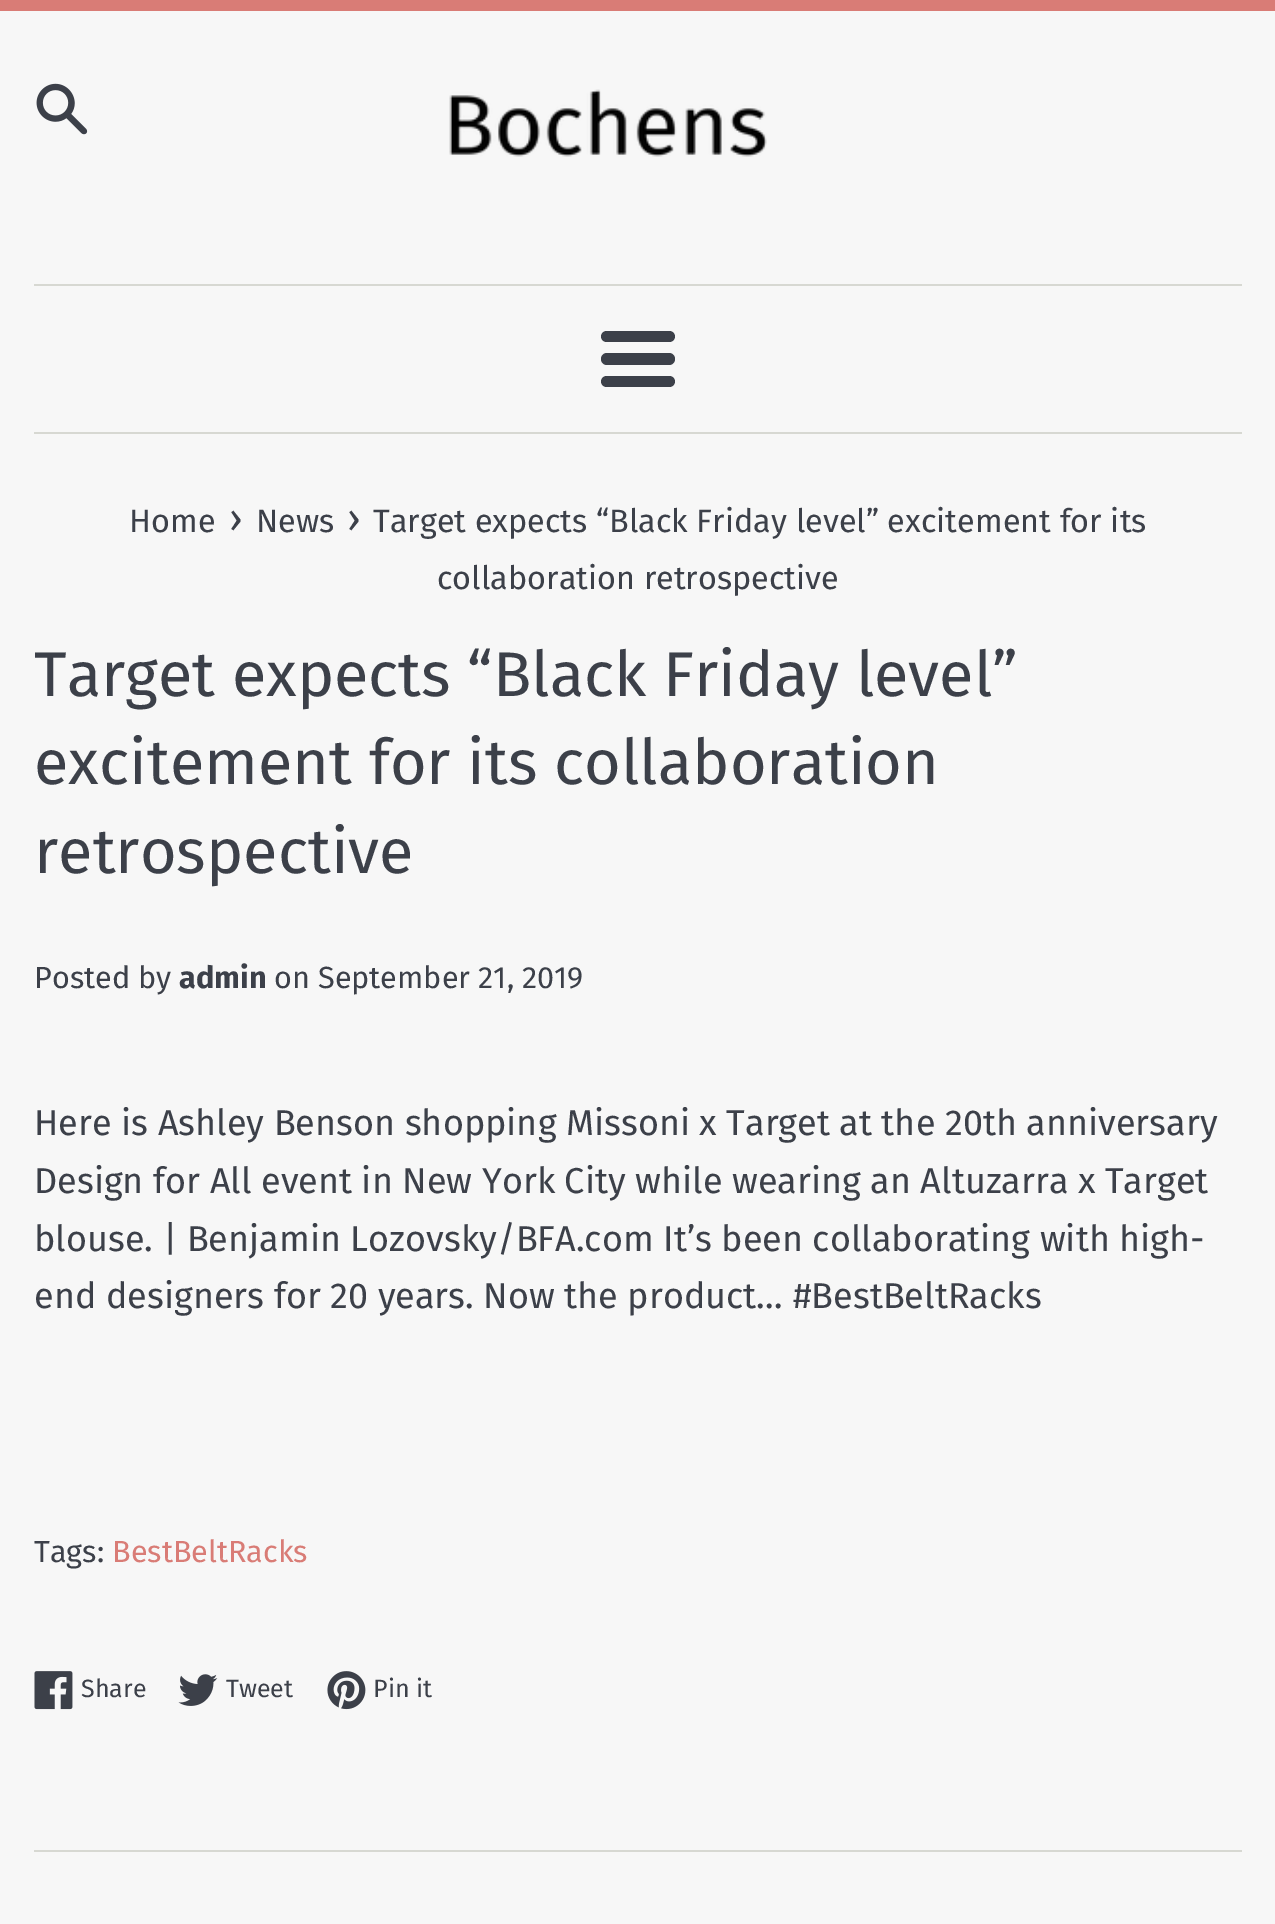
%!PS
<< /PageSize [1275 1924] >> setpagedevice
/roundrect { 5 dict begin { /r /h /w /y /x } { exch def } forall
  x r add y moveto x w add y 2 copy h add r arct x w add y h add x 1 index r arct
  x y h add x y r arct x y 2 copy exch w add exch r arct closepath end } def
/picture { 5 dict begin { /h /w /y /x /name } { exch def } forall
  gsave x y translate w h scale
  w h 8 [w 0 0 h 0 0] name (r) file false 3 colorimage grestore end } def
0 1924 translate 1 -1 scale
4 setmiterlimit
0.969 setgray
0 0 1275 1924 rectfill
0.851 0.486 0.463 setrgbcolor
0 0 1275 11 rectfill
(img1.rgb) 36 83 52 52 picture
(img2.rgb) 449 89 318 68 picture
0.843 0.847 0.824 setrgbcolor
34 284 1208 2 rectfill
0.235 0.251 0.286 setrgbcolor
601 331 74 11 5.5 roundrect fill
601 353 74 12 6 roundrect fill
601 376 74 11 5.5 roundrect fill
0.843 0.847 0.824 setrgbcolor
34 432 1208 2 rectfill
/FiraSans-Regular [32.4 0 0 -32.4 0 0] selectfont
0.235 0.251 0.286 setrgbcolor
129 532 moveto (Home) show
/FiraSans-Regular [40 0 0 -40 0 0] selectfont
229 532 moveto (›) show
/FiraSans-Regular [32.4 0 0 -32.4 0 0] selectfont
256 532 moveto (News) show
/FiraSans-Regular [40 0 0 -40 0 0] selectfont
347 532 moveto (›) show
/FiraSans-Regular [32.4 0 0 -32.4 0 0] selectfont
373 532 moveto (Target expects “Black Friday level” excitement for its) show
437 589 moveto (collaboration retrospective) show
/FiraSans-Regular [63 0 0 -63 0 0] selectfont
34 696 moveto (Target expects “Black Friday level”) show
34 784 moveto (excitement for its collaboration) show
34 873 moveto (retrospective) show
/FiraSans-Regular [30.6 0 0 -30.6 0 0] selectfont
34 988 moveto (Posted by) show
/FiraSans-Bold [30.6 0 0 -30.6 0 0] selectfont
179 988 moveto (admin) show
/FiraSans-Regular [30.6 0 0 -30.6 0 0] selectfont
274 988 moveto (on September 21, 2019) show
/FiraSans-Regular [36 0 0 -36 0 0] selectfont
34 1135 moveto (Here is Ashley Benson shopping Missoni x Target at the 20th anniversary) show
34 1193 moveto (Design for All event in New York City while wearing an Altuzarra x Target) show
34 1251 moveto (blouse. | Benjamin Lozovsky/BFA.com It’s been collaborating with high-) show
34 1308 moveto (end designers for 20 years. Now the product… #BestBeltRacks) show
/FiraSans-Regular [30.6 0 0 -30.6 0 0] selectfont
34 1562 moveto (Tags:) show
0.851 0.486 0.463 setrgbcolor
112 1562 moveto (BestBeltRacks) show
(img3.rgb) 34 1671 39 39 picture
/FiraSans-Regular [25 0 0 -25 0 0] selectfont
0.235 0.251 0.286 setrgbcolor
81 1697 moveto (Share) show
(img4.rgb) 178 1674 40 32 picture
226 1697 moveto (Tweet) show
(img5.rgb) 327 1671 39 39 picture
373 1697 moveto (Pin it) show
0.843 0.847 0.824 setrgbcolor
34 1850 1208 2 rectfill
showpage
